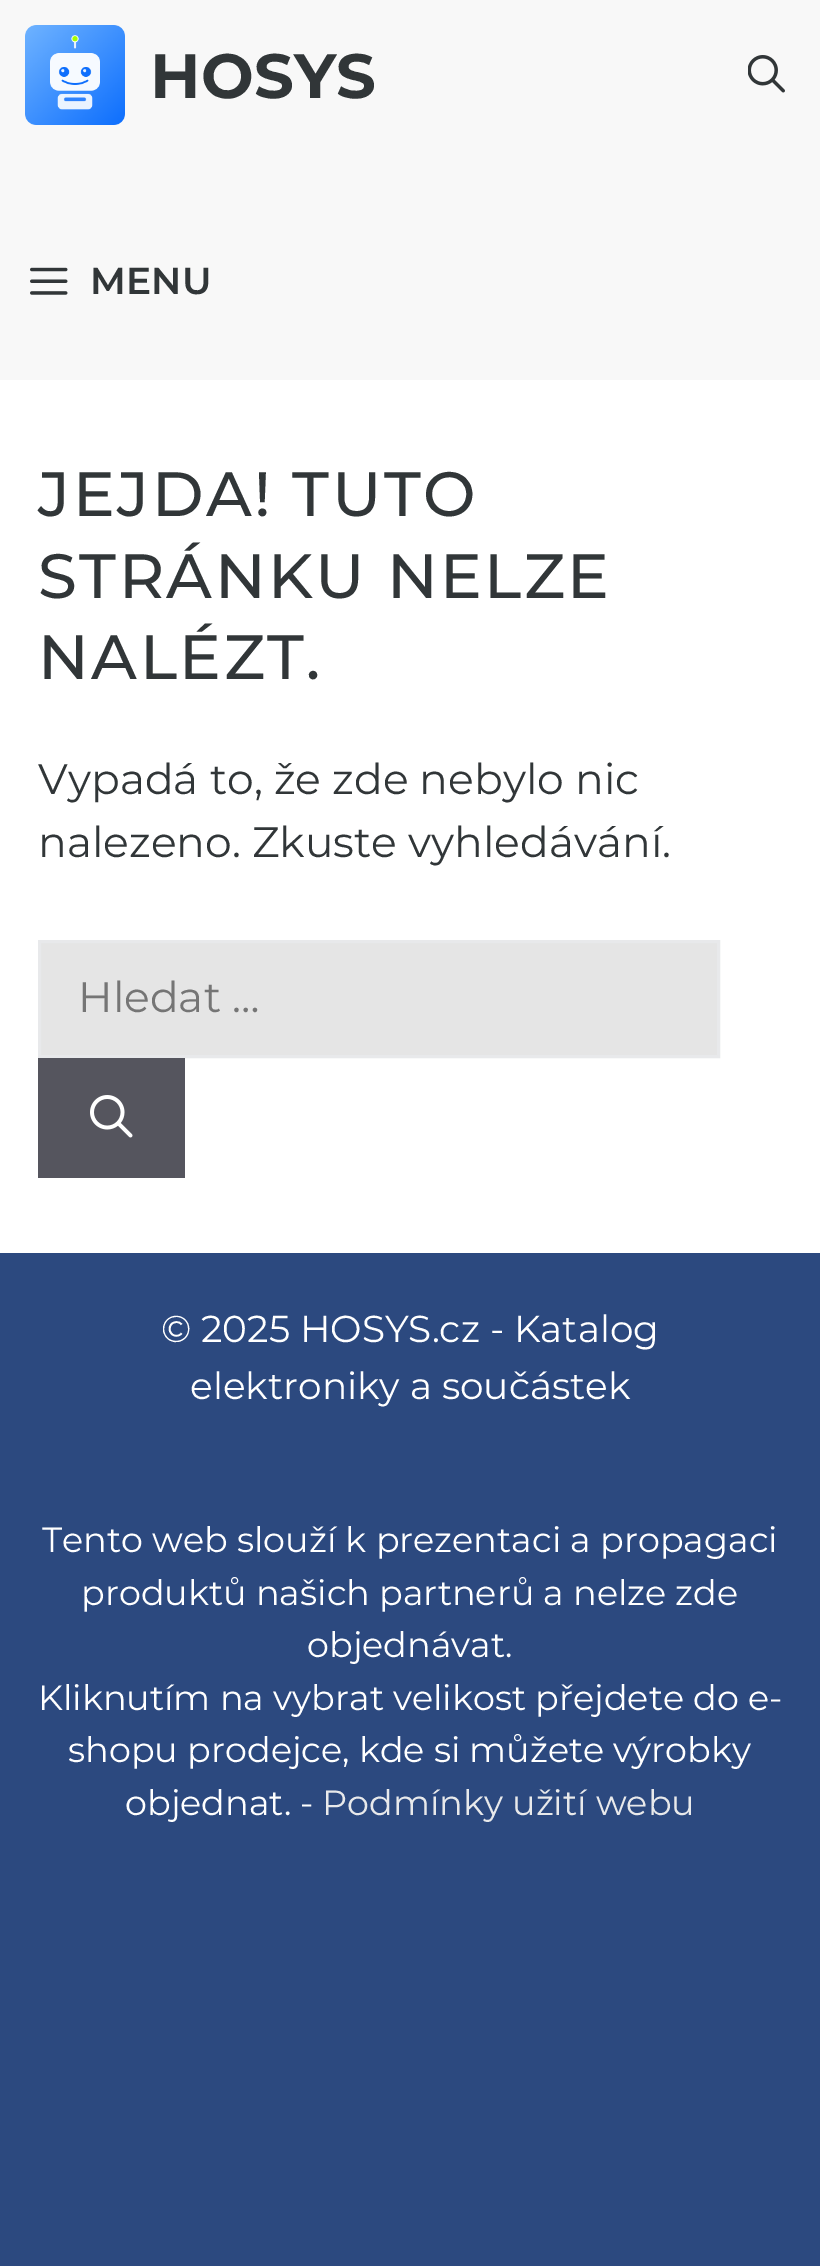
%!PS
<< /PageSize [820 2266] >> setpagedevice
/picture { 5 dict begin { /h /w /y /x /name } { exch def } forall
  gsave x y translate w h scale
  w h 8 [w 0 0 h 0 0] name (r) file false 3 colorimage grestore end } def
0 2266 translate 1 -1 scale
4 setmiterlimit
0.173 0.286 0.498 setrgbcolor
0 0 820 2266 rectfill
0.973 setgray
0 0 820 380 rectfill
(img1.rgb) 25 25 100 100 picture
/Montserrat-Bold [62.5 0 0 -62.5 0 0] selectfont
0.192 0.212 0.22 setrgbcolor
150 98 moveto 0.25 0 (HOSYS) ashow
(img2.rgb) 748 55 37 38 picture
(img3.rgb) 30 267 38 28 picture
/Montserrat-SemiBold [37.5 0 0 -37.5 0 0] selectfont
90 294 moveto 0.25 0 (MENU) ashow
1 setgray
0 380 820 873 rectfill
/Montserrat-Medium [62.5 0 0 -62.5 0 0] selectfont
0.192 0.212 0.22 setrgbcolor
38 516 moveto 2.5 0 (JEJDA! TUTO) ashow
38 598 moveto 2.5 0 (STRÁNKU NELZE) ashow
38 679 moveto 2.5 0 (NALÉZT.) ashow
/Montserrat-Regular [42.5 0 0 -42.5 0 0] selectfont
38 794 moveto (Vypadá to, že zde nebylo nic) show
38 857 moveto (nalezeno. Zkuste vyhledávání.) show
0.898 setgray
newpath 39.5 941.5 moveto 718.5 941.5 lineto 718.5 1056.5 lineto 39.5 1056.5 lineto closepath gsave fill grestore
0.91 0.914 0.922 setrgbcolor
3 setlinewidth
stroke
0.459 setgray
78 1012 moveto (Hledat …) show
0.333 0.333 0.369 setrgbcolor
38 1058 147 120 rectfill
(img4.rgb) 90 1095 43 43 picture
/Montserrat-Regular [37.5 0 0 -37.5 0 0] selectfont
1 setgray
161 1342 moveto (© 2025 HOSYS.cz - Katalog) show
190 1399 moveto (elektroniky a součástek) show
/Montserrat-Regular [35 0 0 -35 0 0] selectfont
42 1552 moveto (Tento web slouží k prezentaci a propagaci) show
81 1605 moveto (produktů našich partnerů a nelze zde) show
307 1657 moveto (objednávat.) show
38 1710 moveto (Kliknutím na vybrat velikost přejdete do e-) show
68 1762 moveto (shopu prodejce, kde si můžete výrobky) show
125 1815 moveto (objednat. -) show
0.91 0.914 0.922 setrgbcolor
322 1815 moveto (Podmínky užití webu) show
showpage
